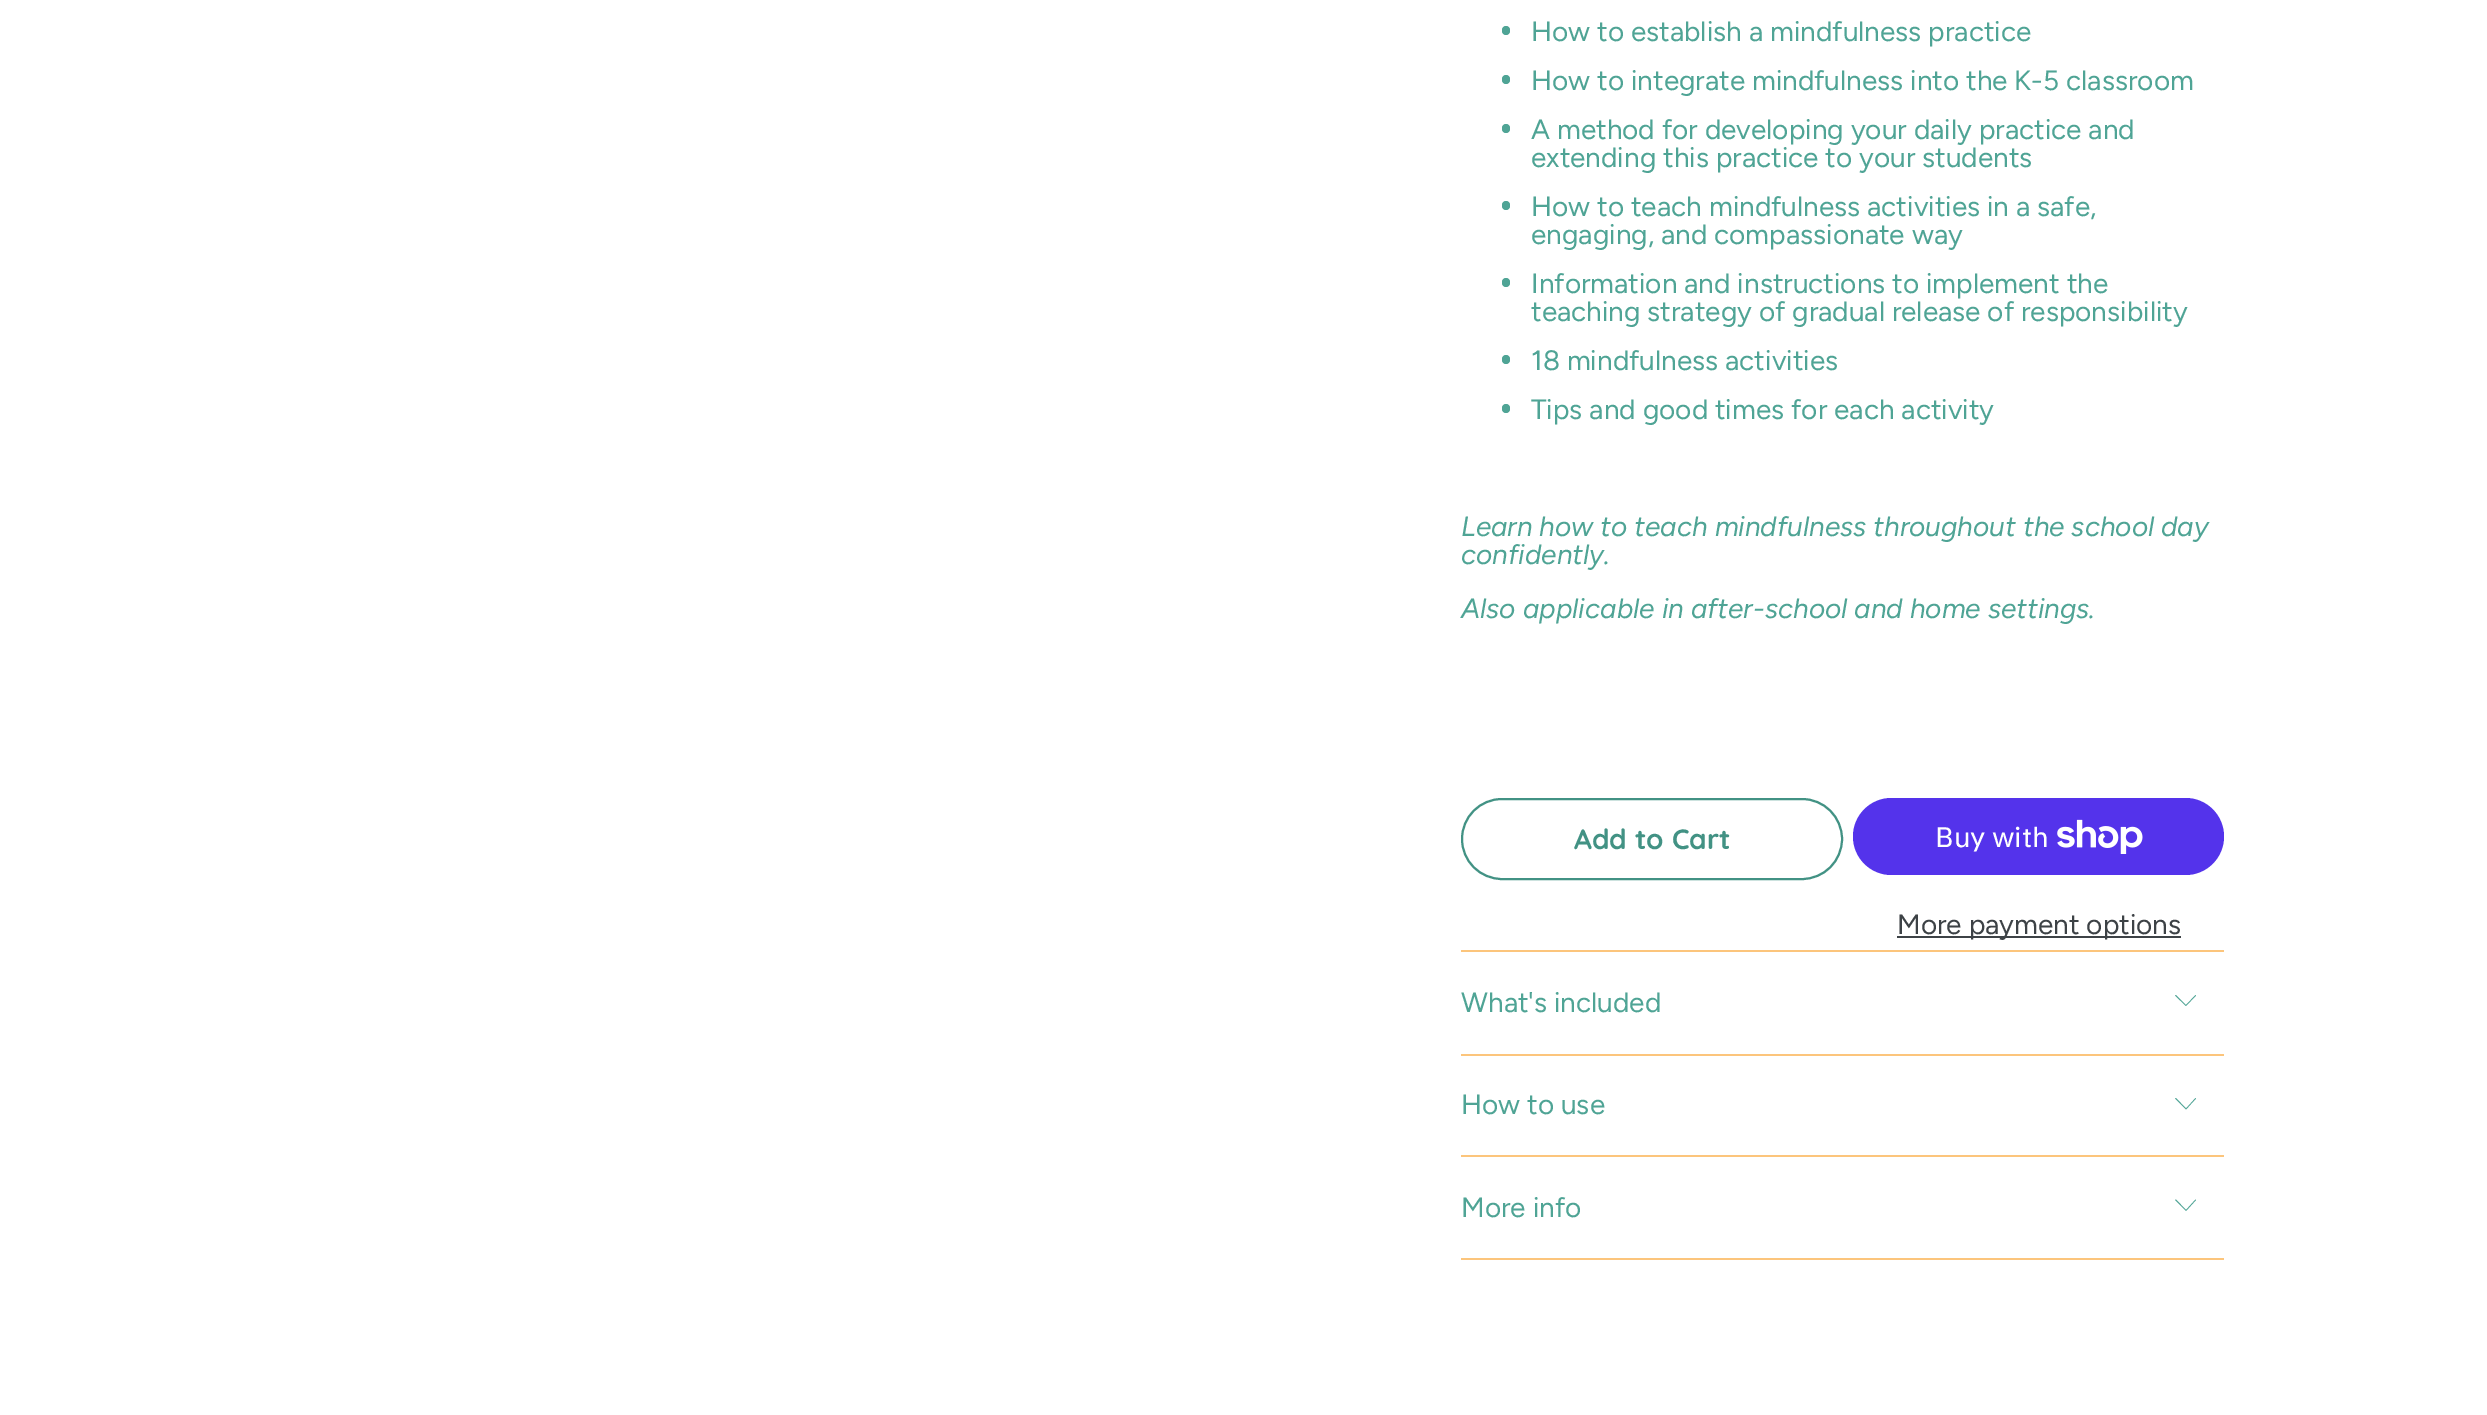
%!PS
<< /PageSize [2487 1415] >> setpagedevice
/roundrect { 5 dict begin { /r /h /w /y /x } { exch def } forall
  x r add y moveto x w add y 2 copy h add r arct x w add y h add x 1 index r arct
  x y h add x y r arct x y 2 copy exch w add exch r arct closepath end } def
/picture { 5 dict begin { /h /w /y /x /name } { exch def } forall
  gsave x y translate w h scale
  w h 8 [w 0 0 h 0 0] name (r) file false 3 colorimage grestore end } def
0 1415 translate 1 -1 scale
4 setmiterlimit
1 setgray
0 0 2487 1415 rectfill
0.31 0.643 0.584 setrgbcolor
1502 26 8 9 4 roundrect fill
/Figtree-Regular [28 0 0 -28 0 0] selectfont
1531 41 moveto (How to establish a mindfulness practice) show
1502 75 8 9 4 roundrect fill
1531 90 moveto (How to integrate mindfulness into the K-5 classroom) show
1502 124 8 9 4 roundrect fill
1531 139 moveto (A method for developing your daily practice and) show
1531 167 moveto (extending this practice to your students) show
1502 201 8 9 4 roundrect fill
1531 216 moveto (How to teach mindfulness activities in a safe,) show
1531 244 moveto (engaging, and compassionate way) show
1502 278 8 9 4 roundrect fill
1531 293 moveto (Information and instructions to implement the) show
1531 321 moveto (teaching strategy of gradual release of responsibility) show
1502 355 8 9 4 roundrect fill
1531 370 moveto (18 mindfulness activities) show
1502 404 8 9 4 roundrect fill
1531 419 moveto (Tips and good times for each activity) show
/Figtree-Italic [28 0 0 -28 0 0] selectfont
1461 536 moveto (Learn how to teach mindfulness throughout the school day) show
1461 564 moveto (confidently.) show
1461 618 moveto (Also applicable in after-school and home settings.) show
0.259 0.573 0.518 setrgbcolor
2 setlinewidth
1462 799 380 80 40 roundrect stroke
/Quicksand-Bold [28 0 0 -28 0 0] selectfont
1574 849 moveto (Add to Cart) show
0.329 0.2 0.922 setrgbcolor
1853 798 371 77 38.5 roundrect fill
/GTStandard-Regular [28 0 0 -28 0 0] selectfont
1 setgray
1935 847 moveto (Buy with) show
(img1.rgb) 2057 819 86 35 picture
0.239 0.259 0.275 setrgbcolor
1897 936 284 2 rectfill
/Figtree-Regular [28 0 0 -28 0 0] selectfont
1897 934 moveto (More payment options) show
0.988 0.773 0.486 setrgbcolor
1461 950 763 2 rectfill
1461 1054 763 2 rectfill
0.31 0.643 0.584 setrgbcolor
1461 1012 moveto (What's included) show
newpath 2186 1006 moveto 2175 995.5 lineto 2176 995 lineto 2186 1005 lineto 2195.5 995 lineto 2196 995.5 lineto closepath fill
0.988 0.773 0.486 setrgbcolor
1461 1155 763 2 rectfill
0.31 0.643 0.584 setrgbcolor
1461 1114 moveto (How to use) show
newpath 2186 1109.5 moveto 2175 1098.5 lineto 2176 1098 lineto 2186 1108.5 lineto 2195.5 1098 lineto 2196 1098.5 lineto closepath fill
0.988 0.773 0.486 setrgbcolor
1461 1258 763 2 rectfill
0.31 0.643 0.584 setrgbcolor
1461 1217 moveto (More info) show
newpath 2186 1211 moveto 2175 1200 lineto 2176 1199.5 lineto 2186 1210 lineto 2195.5 1199.5 lineto 2196 1200 lineto closepath fill
showpage
